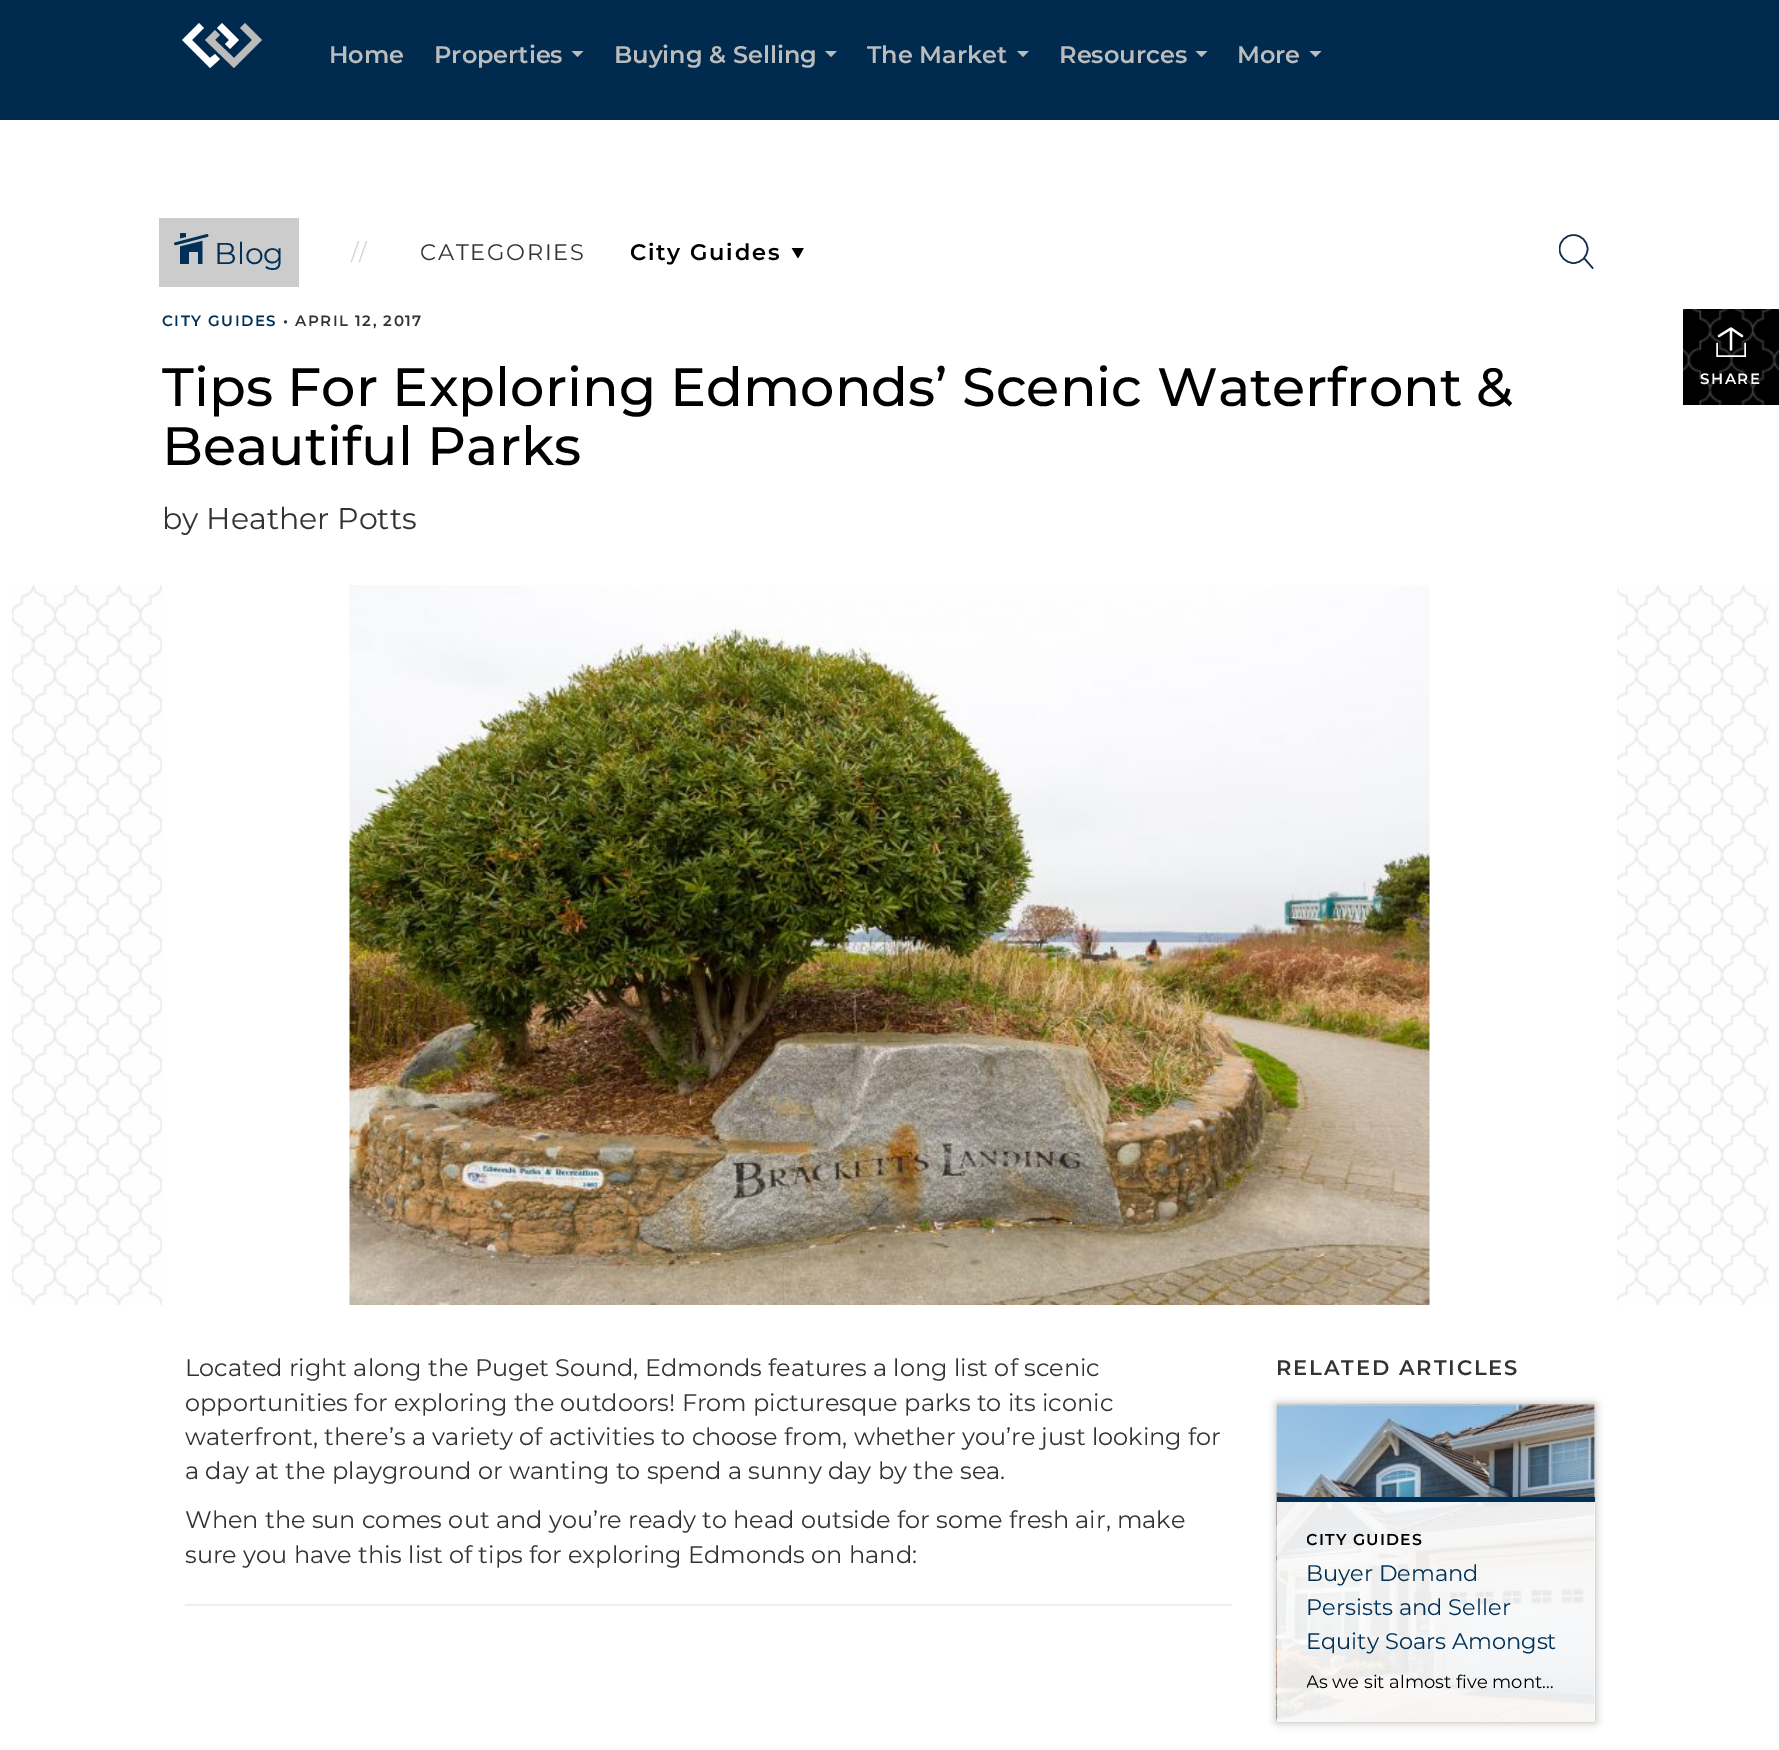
%!PS
<< /PageSize [1779 1750] /PageUsesTransparency true >> setpagedevice
/alpha { dup .setfillconstantalpha .setstrokeconstantalpha } def
/roundrect { 5 dict begin { /r /h /w /y /x } { exch def } forall
  x r add y moveto x w add y 2 copy h add r arct x w add y h add x 1 index r arct
  x y h add x y r arct x y 2 copy exch w add exch r arct closepath end } def
/shadow { 12 dict begin { /a /b /q /h /w /y /x } { exch def } forall gsave /was 0 def
  9 -2 -9 { dup b mul 4 div /e exch def 1 sub .425 mul 2.718 exch exp 1 add a .99 .min exch div /now exch def
    1 1 now sub 1 was sub div sub alpha /was now def
    w h .min e 2 mul add 0 gt { x e sub y e sub w e 2 mul add h e 2 mul add
      q e add b .6 mul add w h .min 2 div e add .min 0 .max roundrect fill } if } for grestore end } def
/picture { 5 dict begin { /h /w /y /x /name } { exch def } forall
  gsave x y translate w h scale
  w h 8 [w 0 0 h 0 0] name (r) file false 3 colorimage grestore end } def
0 .pushpdf14devicefilter
0 1750 translate 1 -1 scale
4 setmiterlimit
1 setgray
0 0 1779 1750 rectfill
0 0.165 0.306 setrgbcolor
0 0 1779 120 rectfill
0.733 setgray
newpath 262 40 moveto 234 68 lineto 205 40 lineto 215 30 lineto 220 35 lineto 215 40 lineto 234 58 lineto 252 40 lineto 240 28 lineto 245 23 lineto closepath fill
1 setgray
newpath 222 23 moveto 217 28 lineto 229 40 lineto 225 44 lineto 230 49 lineto 239 40 lineto closepath 215 54 moveto 220 59 lineto 210 68 lineto 182 40 lineto 199 23 lineto 204 28 lineto 192 40 lineto 210 58 lineto closepath fill
/Montserrat-SemiBold [24 0 0 -24 0 0] selectfont
0.733 0.737 0.737 setrgbcolor
329 63 moveto (Home) show
434 63 moveto (Properties) show
newpath 571.5 51 moveto 583.5 51 lineto 577.5 57 lineto closepath fill
614 63 moveto (Buying & Selling) show
newpath 825 51 moveto 837 51 lineto 831 57 lineto closepath fill
867 63 moveto (The Market) show
newpath 1017 51 moveto 1029 51 lineto 1023 57 lineto closepath fill
1059 63 moveto (Resources) show
newpath 1195.5 51 moveto 1207.5 51 lineto 1201.5 57 lineto closepath fill
1237 63 moveto (More) show
newpath 1309.5 51 moveto 1321.5 51 lineto 1315.5 57 lineto closepath fill
0.988 setgray
12 585 1757 720 rectfill
(img2.rgb) 12 585 1757 720 picture
1 setgray
162 585 1455 720 rectfill
0.8 setgray
159 218 140 69 rectfill
(img1.rgb) 174 233 35 31 picture
/Montserrat-Regular [30 0 0 -30 0 0] selectfont
0 0.188 0.341 setrgbcolor
214 264 moveto (Blog) show
/Montserrat-Regular [22.5 0 0 -22.5 0 0] selectfont
0.835 setgray
351 260 moveto (//) show
0.2 setgray
420 260 moveto 1.75 0 (CATEGORIES) ashow
gsave
791 248 15 10 rectclip
0 setgray
newpath 798 258.5 moveto 804 247.5 lineto 791.5 247.5 lineto closepath fill
grestore
/Montserrat-SemiBold [22.5 0 0 -22.5 0 0] selectfont
0 setgray
630 260 moveto 1.75 0 (City Guides) ashow
gsave
1559 234 36 36 rectclip
0.055 0.169 0.29 setrgbcolor
1.5 setlinewidth
newpath 1573.5 249 14 0 360 arc closepath stroke
grestore
0.055 0.169 0.29 setrgbcolor
1.5 setlinewidth
newpath 1584 258 moveto 1593 268.5 lineto stroke
/Montserrat-SemiBold [15 0 0 -15 0 0] selectfont
0 0.188 0.341 setrgbcolor
162 326 moveto 1.5 0 (CITY GUIDES) ashow
0.2 setgray
283 326 moveto 1.5 0 (• APRIL 12, 2017) ashow
/Montserrat-Medium [54 0 0 -54 0 0] selectfont
0 setgray
162 406 moveto (Tips For Exploring Edmonds’ Scenic Waterfront &) show
162 465 moveto (Beautiful Parks) show
/Montserrat-Regular [30 0 0 -30 0 0] selectfont
0.2 setgray
162 529 moveto (by Heather Potts) show
(img3.rgb) 349 585 1081 720 picture
/Montserrat-Regular [24 0 0 -24 0 0] selectfont
185 1376 moveto (Located right along the Puget Sound, Edmonds features a long list of scenic) show
185 1411 moveto (opportunities for exploring the outdoors! From picturesque parks to its iconic) show
185 1445 moveto (waterfront, there’s a variety of activities to choose from, whether you’re just looking for) show
185 1479 moveto (a day at the playground or wanting to spend a sunny day by the sea.) show
185 1528 moveto (When the sun comes out and you’re ready to head outside for some fresh air, make) show
185 1563 moveto (sure you have this list of tips for exploring Edmonds on hand:) show
0.933 setgray
185 1604 1047 2 rectfill
/Montserrat-SemiBold [21 0 0 -21 0 0] selectfont
0.2 setgray
1276 1375 moveto 1.9 0 (RELATED ARTICLES) ashow
0 setgray
1277 1404 318 318 0 4.5 0.3 shadow
(img4.rgb) 1276 1404 319 318 picture
0.9 alpha
1 setgray
1277 1502 318 220 rectfill
1 alpha
0 0.188 0.341 setrgbcolor
1277 1497 318 5 rectfill
gsave
1307 1524 258 33 rectclip
/Montserrat-SemiBold [15.75 0 0 -15.75 0 0] selectfont
0 setgray
1306 1545 moveto 1.25 0 (CITY GUIDES) ashow
grestore
/Montserrat-Regular [22.5 0 0 -22.5 0 0] selectfont
1306 1581 moveto (Buyer Demand) show
1306 1615 moveto (Persists and Seller) show
1306 1649 moveto (Equity Soars Amongst) show
gsave
1307 1667 258 33 rectclip
/Montserrat-Regular [18 0 0 -18 0 0] selectfont
0 setgray
1306 1688 moveto (As we sit almost five mont…) show
grestore
(img5.rgb) 1683 309 96 96 picture
1 setgray
1 setlinecap
newpath 1717 343.5 moveto 1717 356 lineto 1745 356 lineto 1745 343.5 lineto stroke
2.2 setlinewidth
newpath 1731 349.5 moveto 1731 329 lineto stroke
1 setlinejoin
newpath 1719 336 moveto 1731 328.5 lineto 1742 336 lineto stroke
/Montserrat-SemiBold [15 0 0 -15 0 0] selectfont
1700 384 moveto 1.5 0 (SHARE) ashow
.poppdf14devicefilter showpage
